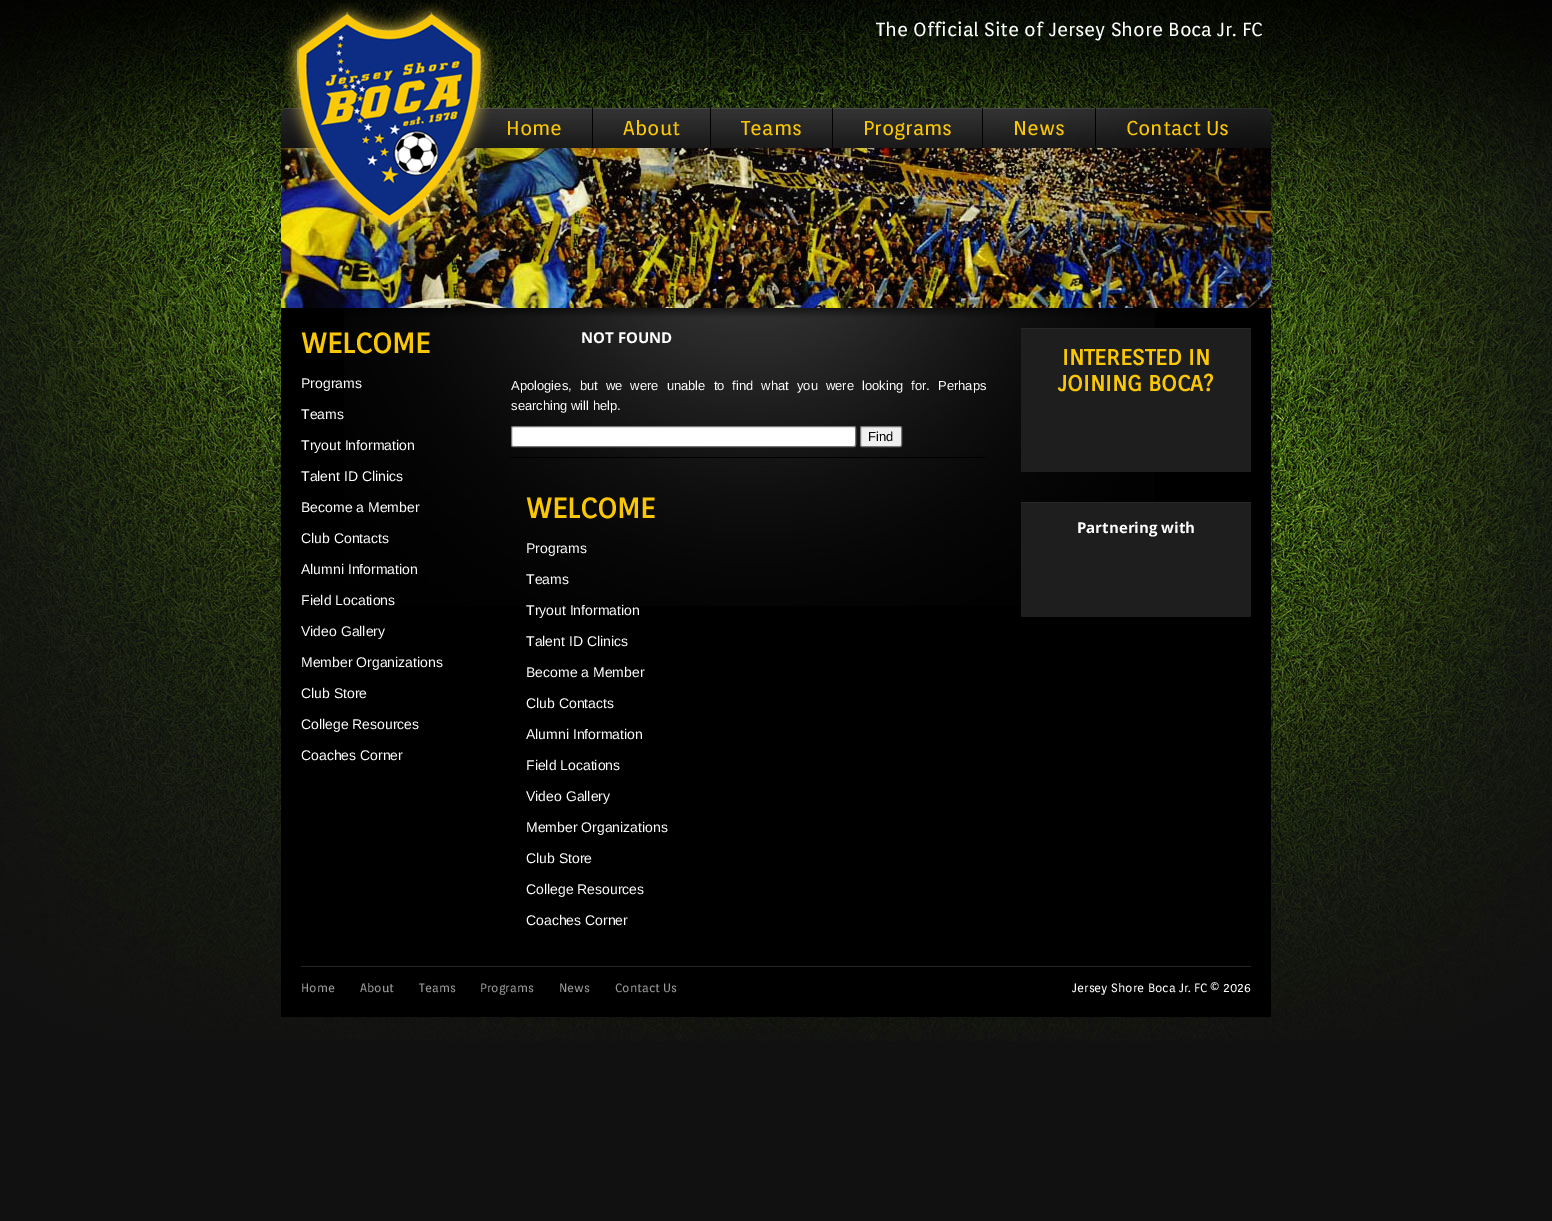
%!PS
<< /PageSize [1552 1221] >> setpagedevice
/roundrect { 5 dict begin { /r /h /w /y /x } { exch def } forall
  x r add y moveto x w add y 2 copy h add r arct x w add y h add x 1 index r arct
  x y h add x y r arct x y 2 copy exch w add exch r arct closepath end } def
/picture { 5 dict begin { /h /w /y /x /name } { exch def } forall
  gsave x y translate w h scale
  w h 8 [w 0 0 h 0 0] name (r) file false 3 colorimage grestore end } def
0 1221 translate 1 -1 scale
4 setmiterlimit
0.067 setgray
0 0 1552 1221 rectfill
(img1.rgb) 0 0 1552 1041 picture
(img3.rgb) 281 108 990 40 picture
(img4.rgb) 281 148 990 160 picture
(img2.rgb) 283 3 212 234 picture
/Orienta-Regular [19 0 0 -19 0 0] selectfont
1 setgray
876 36 moveto (The Official Site of Jersey Shore Boca Jr. FC) show
0 setgray
592 108 1 40 rectfill
/Orienta-Regular [20 0 0 -20 0 0] selectfont
0.98 0.78 0.027 setrgbcolor
506 135 moveto (Home) show
0 setgray
710 108 1 40 rectfill
0.98 0.78 0.027 setrgbcolor
623 135 moveto (About) show
0 setgray
832 108 1 40 rectfill
0.98 0.78 0.027 setrgbcolor
741 135 moveto (Teams) show
0 setgray
982 108 1 40 rectfill
0.98 0.78 0.027 setrgbcolor
863 135 moveto (Programs) show
0 setgray
1095 108 1 40 rectfill
0.98 0.78 0.027 setrgbcolor
1013 135 moveto (News) show
1126 135 moveto (Contact Us) show
0 setgray
281 308 990 709 rectfill
(img5.rgb) 344 308 811 298 picture
/Orienta-Bold [28 0 0 -28 0 0] selectfont
0.98 0.78 0.027 setrgbcolor
301 353 moveto (WELCOME) show
/LiberationSans-Regular [14 0 0 -14 0 0] selectfont
1 setgray
301 388 moveto (Programs) show
301 419 moveto (Teams) show
301 450 moveto (Tryout Information) show
301 481 moveto (Talent ID Clinics) show
301 512 moveto (Become a Member) show
301 543 moveto (Club Contacts) show
301 574 moveto (Alumni Information) show
301 605 moveto (Field Locations) show
301 636 moveto (Video Gallery) show
301 667 moveto (Member Organizations) show
301 698 moveto (Club Store) show
301 729 moveto (College Resources) show
301 760 moveto (Coaches Corner) show
0 setgray
511 457 475 1 rectfill
/OpenSans-Bold [15 0 0 -15 0 0] selectfont
1 setgray
581 343 moveto (NOT FOUND) show
/LiberationSans-Regular [13 0 0 -13 0 0] selectfont
511 390 moveto 4.4 0 32 (Apologies, but we were unable to find what you were looking for. Perhaps) widthshow
511 410 moveto (searching will help.) show
511.5 426.5 344 20 1.5 roundrect gsave fill grestore
0.463 setgray
stroke
0.937 setgray
860.5 426.5 41 20 1.5 roundrect gsave fill grestore
0.463 setgray
stroke
0 setgray
868 441 moveto (Find) show
/Orienta-Bold [28 0 0 -28 0 0] selectfont
0.98 0.78 0.027 setrgbcolor
526 518 moveto (WELCOME) show
/LiberationSans-Regular [14 0 0 -14 0 0] selectfont
1 setgray
526 553 moveto (Programs) show
526 584 moveto (Teams) show
526 615 moveto (Tryout Information) show
526 646 moveto (Talent ID Clinics) show
526 677 moveto (Become a Member) show
526 708 moveto (Club Contacts) show
526 739 moveto (Alumni Information) show
526 770 moveto (Field Locations) show
526 801 moveto (Video Gallery) show
526 832 moveto (Member Organizations) show
526 863 moveto (Club Store) show
526 894 moveto (College Resources) show
526 925 moveto (Coaches Corner) show
0.118 setgray
1021 329 230 143 rectfill
0.157 setgray
1021 328 230 1 rectfill
/Orienta-Bold [22 0 0 -22 0 0] selectfont
0.98 0.78 0.027 setrgbcolor
1062 365 moveto (INTERESTED IN) show
1058 391 moveto (JOINING BOCA?) show
0.118 setgray
1021 503 230 114 rectfill
0.157 setgray
1021 502 230 1 rectfill
/OpenSans-Bold [15 0 0 -15 0 0] selectfont
1 setgray
1077 533 moveto (Partnering with) show
0.149 setgray
301 966 950 1 rectfill
/Orienta-Regular [12 0 0 -12 0 0] selectfont
0.6 setgray
301 992 moveto (Home) show
360 992 moveto (About) show
419 992 moveto (Teams) show
480 992 moveto (Programs) show
559 992 moveto (News) show
615 992 moveto (Contact Us) show
1 setgray
1072 992 moveto (Jersey Shore Boca Jr. FC © 2026) show
showpage
